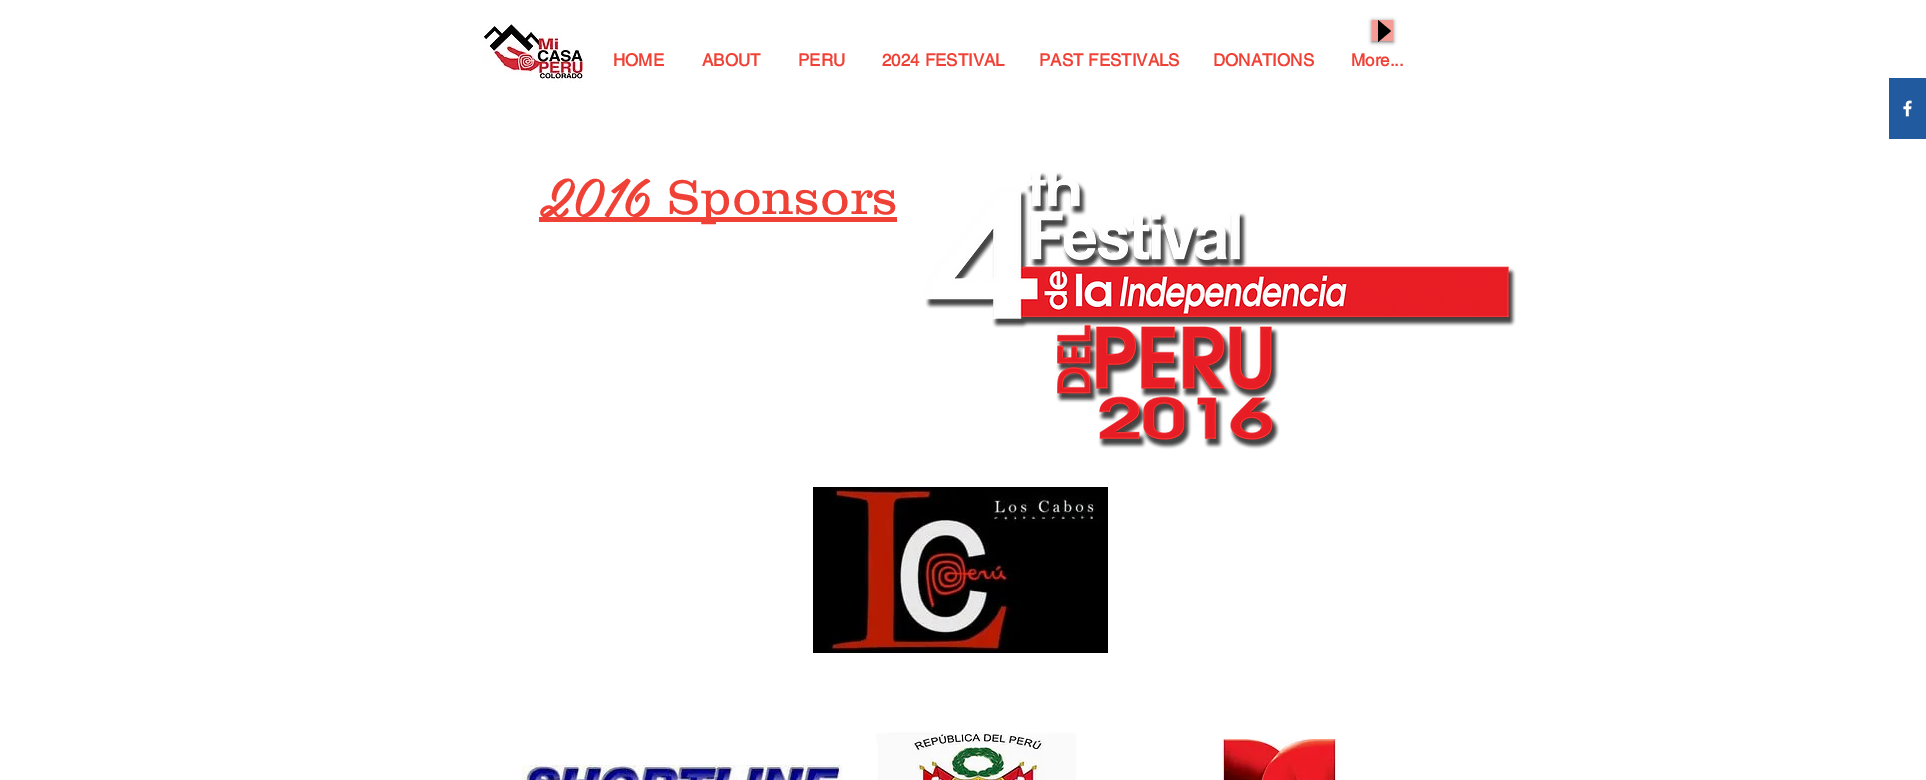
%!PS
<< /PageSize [1926 780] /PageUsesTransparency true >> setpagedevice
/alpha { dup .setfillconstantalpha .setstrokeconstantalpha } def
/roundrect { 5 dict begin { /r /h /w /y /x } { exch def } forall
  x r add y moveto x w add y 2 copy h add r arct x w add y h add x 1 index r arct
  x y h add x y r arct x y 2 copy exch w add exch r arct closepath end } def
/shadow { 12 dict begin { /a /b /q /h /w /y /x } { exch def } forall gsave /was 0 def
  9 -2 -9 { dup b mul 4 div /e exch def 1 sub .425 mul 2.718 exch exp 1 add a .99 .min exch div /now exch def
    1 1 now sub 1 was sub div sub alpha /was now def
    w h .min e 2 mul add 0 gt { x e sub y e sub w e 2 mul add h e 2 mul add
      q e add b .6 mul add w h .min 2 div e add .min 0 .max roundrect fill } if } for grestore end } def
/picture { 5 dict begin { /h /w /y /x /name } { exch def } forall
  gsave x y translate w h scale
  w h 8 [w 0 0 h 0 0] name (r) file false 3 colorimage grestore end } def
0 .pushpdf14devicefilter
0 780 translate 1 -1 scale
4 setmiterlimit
1 setgray
0 0 1926 780 rectfill
(img1.rgb) 482 24 102 58 picture
0 setgray
1372 21 21 21 0 2 0.6 shadow
0.957 0.608 0.584 setrgbcolor
1372 20 21 21 rectfill
0 setgray
newpath 1378 42 moveto 1378 20 lineto 1391 31 lineto closepath fill
/helvetica-Bold [17 0 0 -17 0 0] selectfont
0.937 0.255 0.208 setrgbcolor
613 66 moveto (HOME) show
702 66 moveto (ABOUT) show
798 66 moveto (PERU) show
882 66 moveto (2024 FESTIVAL) show
1039 66 moveto (PAST FESTIVALS) show
1213 66 moveto (DONATIONS) show
1351 66 moveto (More...) show
0.129 0.353 0.62 setrgbcolor
1889 78 37 61 rectfill
(img2.rgb) 1903 100 9 17 picture
0.937 0.255 0.208 setrgbcolor
539 217 358 5 rectfill
/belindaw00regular-Regular [50 0 0 -50 0 0] selectfont
539 214 moveto (2016) show
/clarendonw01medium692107-Light [50 0 0 -50 0 0] selectfont
667 214 moveto (Sponsors) show
(img3.rgb) 925 172 591 277 picture
(img4.rgb) 813 487 295 166 picture
(img5.rgb) 522 765 320 15 picture
(img6.rgb) 876 732 200 48 picture
(img7.rgb) 1222 739 117 41 picture
.poppdf14devicefilter showpage
